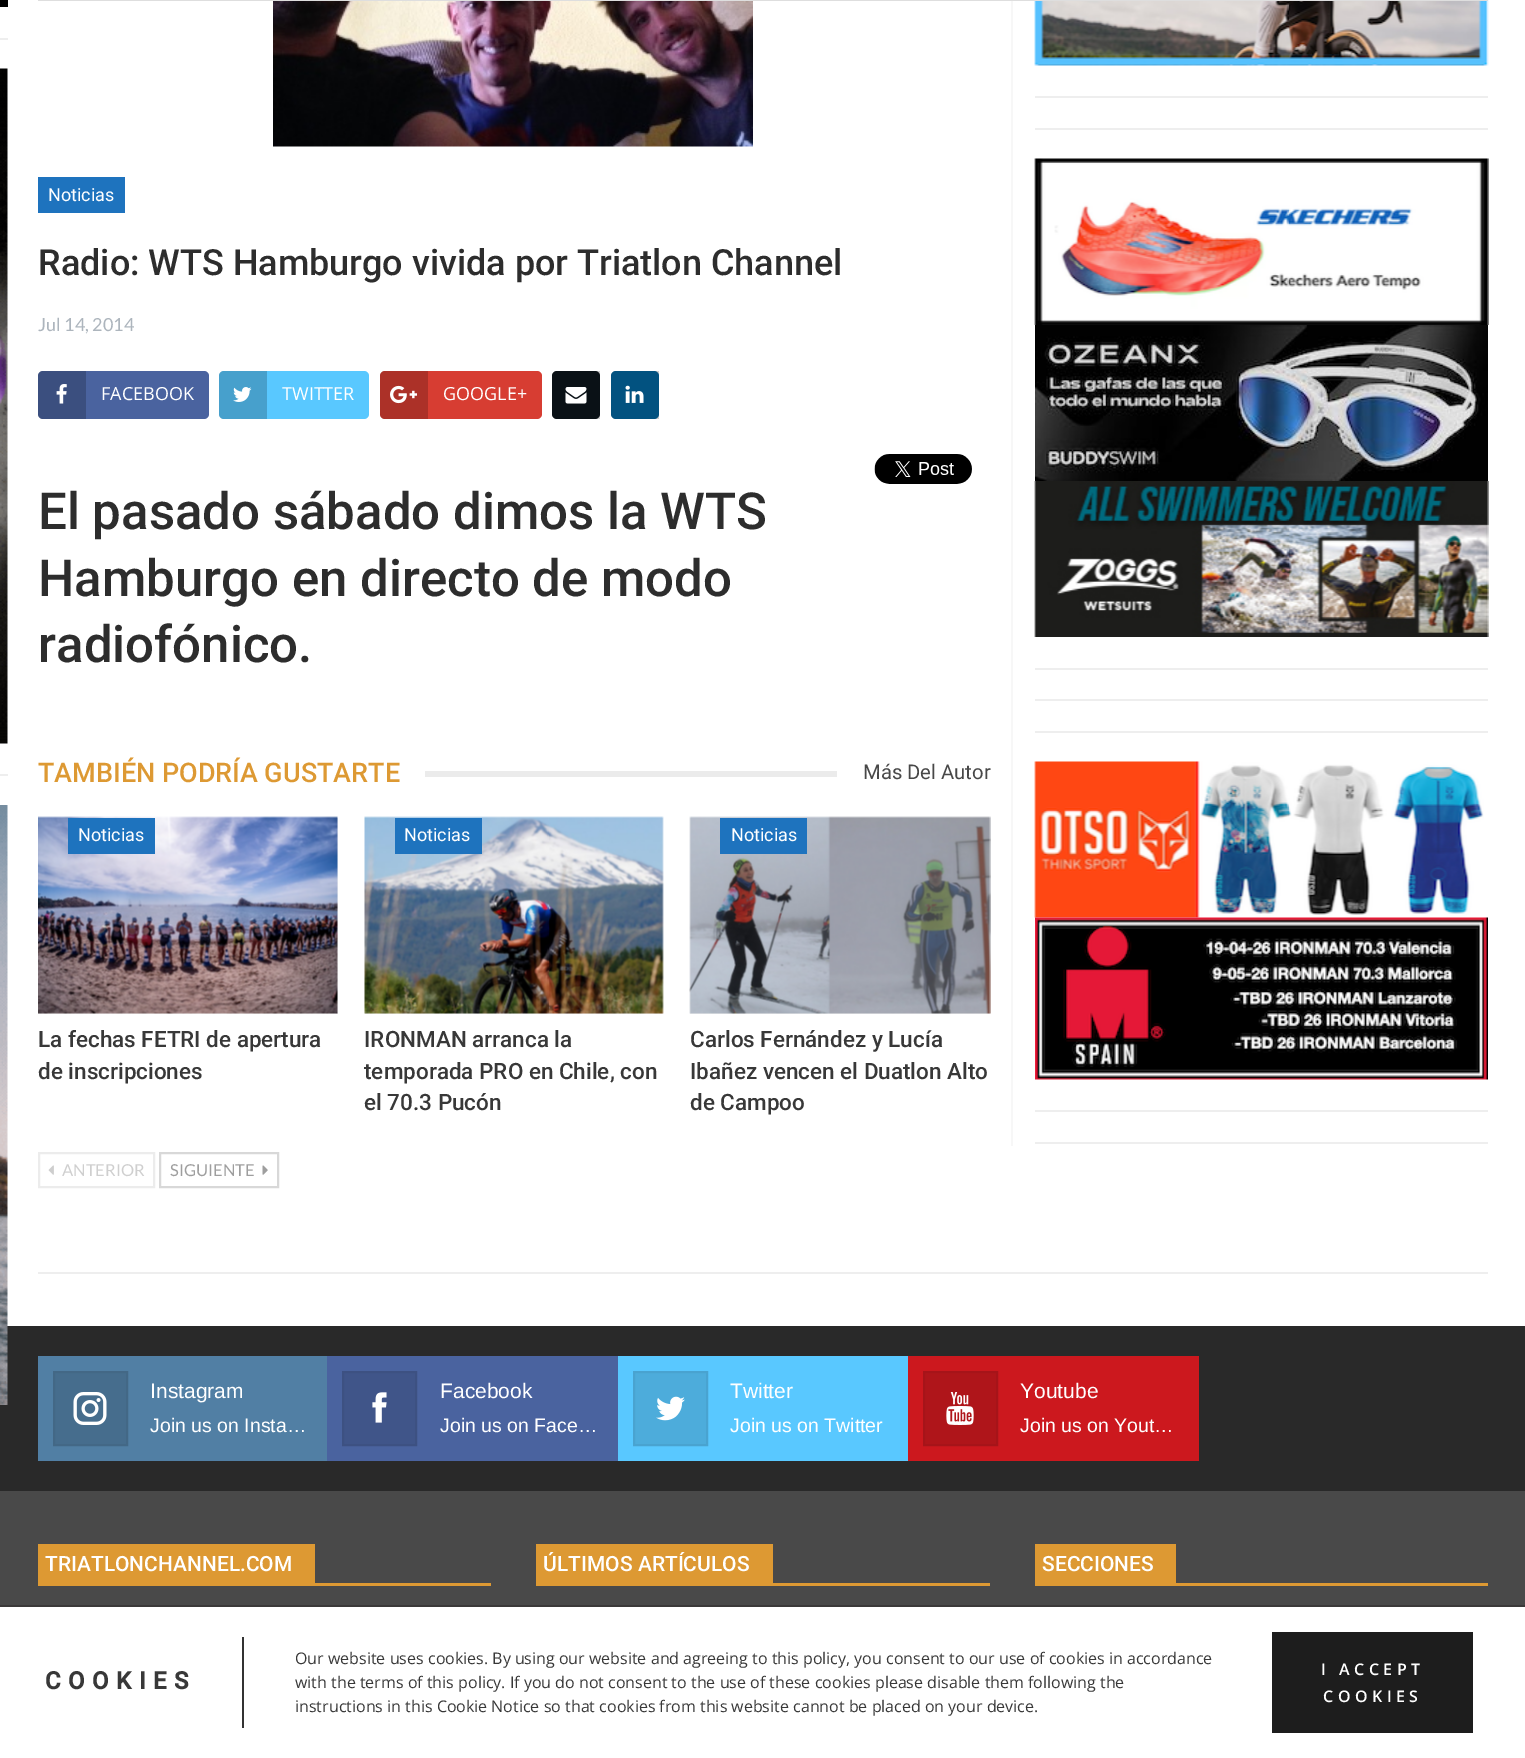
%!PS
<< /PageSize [1525 1758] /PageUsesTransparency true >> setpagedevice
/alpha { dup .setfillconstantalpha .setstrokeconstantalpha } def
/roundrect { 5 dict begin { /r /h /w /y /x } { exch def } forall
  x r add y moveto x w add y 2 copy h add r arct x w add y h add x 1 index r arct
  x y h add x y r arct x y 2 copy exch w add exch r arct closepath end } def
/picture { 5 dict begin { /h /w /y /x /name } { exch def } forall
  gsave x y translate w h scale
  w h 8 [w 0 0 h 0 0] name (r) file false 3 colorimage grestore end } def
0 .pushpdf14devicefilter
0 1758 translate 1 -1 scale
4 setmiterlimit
1 setgray
0 0 1525 1758 rectfill
0.969 setgray
1011 0 2 1146 rectfill
(img15.rgb) 1034 0 455 66 picture
0.871 setgray
38 0 1450 1 rectfill
0 setgray
0 0 8 7 rectfill
0.933 setgray
0 38 8 2 rectfill
(img1.rgb) 0 68 8 676 picture
0 774 8 2 rectfill
0.161 setgray
0 1326 1525 165 rectfill
(img2.rgb) 0 805 8 600 picture
(img3.rgb) 273 1 480 146 picture
0.118 0.451 0.745 setrgbcolor
38 177 87 36 rectfill
/Roboto-Regular [18 0 0 -18 0 0] selectfont
1 setgray
48 201 moveto (Noticias) show
/Roboto-Medium [36 0 0 -36 0 0] selectfont
0.176 setgray
38 275 moveto (Radio: WTS Hamburgo vivida por Triatlon Channel) show
/Lato-Regular [18 0 0 -18 0 0] selectfont
0.678 0.71 0.741 setrgbcolor
38 331 moveto (Jul 14, 2014) show
0.29 0.388 0.624 setrgbcolor
38 371 171 48 5 roundrect fill
0.2 alpha
0 setgray
newpath 43 371 moveto 86 371 lineto 86 419 lineto 43 419 lineto 40 419 38 417 38 414 curveto 38 376 lineto 38 373 40 371 43 371 curveto closepath fill
1 alpha
(img4.rgb) 56 384 11 20 picture
/OpenSans-Regular [18 0 0 -18 0 0] selectfont
1 setgray
101 400 moveto (FACEBOOK) show
0.349 0.784 1 setrgbcolor
219 371 150 48 5 roundrect fill
0.2 alpha
0 setgray
newpath 224 371 moveto 267 371 lineto 267 419 lineto 224 419 lineto 221 419 219 417 219 414 curveto 219 376 lineto 219 373 221 371 224 371 curveto closepath fill
1 alpha
(img5.rgb) 233 387 19 15 picture
1 setgray
282 400 moveto (TWITTER) show
0.843 0.239 0.196 setrgbcolor
380 371 162 48 5 roundrect fill
0.2 alpha
0 setgray
newpath 385 371 moveto 428 371 lineto 428 419 lineto 385 419 lineto 382 419 380 417 380 414 curveto 380 376 lineto 380 373 382 371 385 371 curveto closepath fill
1 alpha
(img6.rgb) 390 385 27 19 picture
1 setgray
443 400 moveto (GOOGLE+) show
0.047 0.082 0.11 setrgbcolor
552 371 48 48 5 roundrect fill
0.2 alpha
0 setgray
newpath 557 371 moveto 600 371 lineto 600 419 lineto 557 419 lineto 554 419 552 417 552 414 curveto 552 376 lineto 552 373 554 371 557 371 curveto closepath fill
1 alpha
(img7.rgb) 565 387 22 17 picture
0.008 0.4 0.627 setrgbcolor
611 371 48 48 5 roundrect fill
0.2 alpha
0 setgray
newpath 616 371 moveto 659 371 lineto 659 419 lineto 616 419 lineto 613 419 611 417 611 414 curveto 611 376 lineto 611 373 613 371 616 371 curveto closepath fill
1 alpha
(img8.rgb) 625 385 19 18 picture
(img9.rgb) 874 454 98 30 picture
/Roboto-Medium [51 0 0 -51 0 0] selectfont
0.176 setgray
38 529 moveto (El pasado sábado dimos la WTS) show
38 596 moveto (Hamburgo en directo de modo) show
38 662 moveto (radiofónico.) show
/Roboto-Medium [27 0 0 -27 0 0] selectfont
0.867 0.6 0.2 setrgbcolor
38 782 moveto (TAMBIÉN PODRÍA GUSTARTE) show
0.922 setgray
425 771 412 6 rectfill
/Roboto-Regular [20.25 0 0 -20.25 0 0] selectfont
0.282 setgray
863 779 moveto (Más Del Autor) show
0.933 setgray
38 818 300 196 rectfill
(img10.rgb) 38 816 300 198 picture
0.118 0.451 0.745 setrgbcolor
68 818 87 36 rectfill
/Roboto-Regular [18 0 0 -18 0 0] selectfont
1 setgray
78 841 moveto (Noticias) show
/Roboto-Medium [22.5 0 0 -22.5 0 0] selectfont
0.22 setgray
38 1047 moveto (La fechas FETRI de apertura) show
38 1079 moveto (de inscripciones) show
0.933 setgray
365 818 298 196 rectfill
(img11.rgb) 364 816 300 198 picture
0.118 0.451 0.745 setrgbcolor
395 818 87 36 rectfill
/Roboto-Regular [18 0 0 -18 0 0] selectfont
1 setgray
404 841 moveto (Noticias) show
/Roboto-Medium [22.5 0 0 -22.5 0 0] selectfont
0.22 setgray
364 1047 moveto (IRONMAN arranca la) show
364 1079 moveto (temporada PRO en Chile, con) show
364 1110 moveto (el 70.3 Pucón) show
0.933 setgray
690 818 300 196 rectfill
(img12.rgb) 689 816 302 198 picture
0.118 0.451 0.745 setrgbcolor
720 818 87 36 rectfill
/Roboto-Regular [18 0 0 -18 0 0] selectfont
1 setgray
731 841 moveto (Noticias) show
/Roboto-Medium [22.5 0 0 -22.5 0 0] selectfont
0.22 setgray
690 1047 moveto (Carlos Fernández y Lucía) show
690 1079 moveto (Ibañez vencen el Duatlon Alto) show
690 1110 moveto (de Campoo) show
0.925 setgray
2 setlinewidth
39 1153 115 34 rectstroke
(img13.rgb) 48 1165 6 10 picture
/Lato-Regular [16.5 0 0 -16.5 0 0] selectfont
0.812 setgray
62 1176 moveto (ANTERIOR) show
0.847 setgray
160 1153 118 34 rectstroke
0.62 setgray
170 1176 moveto (SIGUIENTE) show
(img14.rgb) 262 1165 6 10 picture
0.933 setgray
1035 96 453 2 rectfill
1035 128 453 2 rectfill
(img16.rgb) 1034 158 455 167 picture
(img17.rgb) 1035 325 453 156 picture
(img18.rgb) 1034 481 455 156 picture
1035 668 453 2 rectfill
1035 699 453 2 rectfill
1035 731 453 2 rectfill
(img19.rgb) 1034 761 450 157 picture
(img20.rgb) 1035 917 453 163 picture
1035 1110 453 2 rectfill
1035 1142 453 2 rectfill
38 1272 1450 2 rectfill
0.286 setgray
0 1491 1525 114 rectfill
0.318 0.498 0.643 setrgbcolor
38 1356 289 105 rectfill
0.275 0.427 0.553 setrgbcolor
newpath 54 1372 moveto 127 1372 lineto 127 1445 lineto 54 1445 lineto closepath gsave fill grestore
0.263 0.408 0.525 setrgbcolor
stroke
(img21.rgb) 73 1392 34 33 picture
/LiberationSans-Regular [21 0 0 -21 0 0] selectfont
1 setgray
150 1398 moveto (Instagram) show
/LiberationSans-Regular [19.5 0 0 -19.5 0 0] selectfont
150 1432 moveto (Join us on Insta…) show
0.29 0.388 0.624 setrgbcolor
327 1356 291 105 rectfill
0.251 0.333 0.537 setrgbcolor
newpath 343 1372 moveto 416 1372 lineto 416 1445 lineto 343 1445 lineto closepath gsave fill grestore
0.239 0.318 0.51 setrgbcolor
stroke
(img22.rgb) 372 1392 15 31 picture
/LiberationSans-Regular [21 0 0 -21 0 0] selectfont
1 setgray
440 1398 moveto (Facebook) show
/LiberationSans-Regular [19.5 0 0 -19.5 0 0] selectfont
440 1432 moveto (Join us on Face…) show
0.349 0.784 1 setrgbcolor
618 1356 290 105 rectfill
0.302 0.675 0.859 setrgbcolor
newpath 634 1372 moveto 707 1372 lineto 707 1445 lineto 634 1445 lineto closepath gsave fill grestore
0.286 0.639 0.816 setrgbcolor
stroke
(img23.rgb) 656 1396 29 25 picture
/LiberationSans-Regular [21 0 0 -21 0 0] selectfont
1 setgray
730 1398 moveto (Twitter) show
/LiberationSans-Regular [19.5 0 0 -19.5 0 0] selectfont
730 1432 moveto (Join us on Twitter) show
0.8 0.094 0.118 setrgbcolor
908 1356 291 105 rectfill
0.686 0.082 0.102 setrgbcolor
newpath 924 1372 moveto 997 1372 lineto 997 1445 lineto 924 1445 lineto closepath gsave fill grestore
0.651 0.078 0.098 setrgbcolor
stroke
(img24.rgb) 946 1392 28 33 picture
/LiberationSans-Regular [21 0 0 -21 0 0] selectfont
1 setgray
1020 1398 moveto (Youtube) show
/LiberationSans-Regular [19.5 0 0 -19.5 0 0] selectfont
1020 1432 moveto (Join us on Yout…) show
0.867 0.6 0.2 setrgbcolor
38 1544 277 39 rectfill
/Roboto-Medium [21 0 0 -21 0 0] selectfont
1 setgray
45 1571 moveto (TRIATLONCHANNEL.COM) show
0.867 0.6 0.2 setrgbcolor
38 1583 453 3 rectfill
536 1544 237 39 rectfill
1 setgray
543 1571 moveto (ÚLTIMOS ARTÍCULOS) show
0.867 0.6 0.2 setrgbcolor
536 1583 454 3 rectfill
1035 1544 141 39 rectfill
1 setgray
1042 1571 moveto (SECCIONES) show
0.867 0.6 0.2 setrgbcolor
1035 1583 453 3 rectfill
0.231 0.224 0.224 setrgbcolor
0 1605 1525 2 rectfill
0.2 setgray
242 1637 2 91 rectfill
/Roboto-Bold [24 0 0 -24 0 0] selectfont
0.22 setgray
45 1689 moveto 7.5 0 (COOKIES) ashow
/OpenSans-Regular [16 0 0 -16 0 0] selectfont
295 1664 moveto (Our website uses cookies. By using our website and agreeing to this policy, you consent to our use of cookies in accordance) show
295 1688 moveto (with the terms of this policy. If you do not consent to the use of these cookies please disable them following the) show
295 1712 moveto (instructions in this Cookie Notice so that cookies from this website cannot be placed on your device.) show
0.114 setgray
1272 1632 201 101 rectfill
/OpenSans-SemiBold [16 0 0 -16 0 0] selectfont
1 setgray
1321 1675 moveto 4.5 0 (I ACCEPT) ashow
1323 1702 moveto 4.5 0 (COOKIES) ashow
.poppdf14devicefilter showpage
